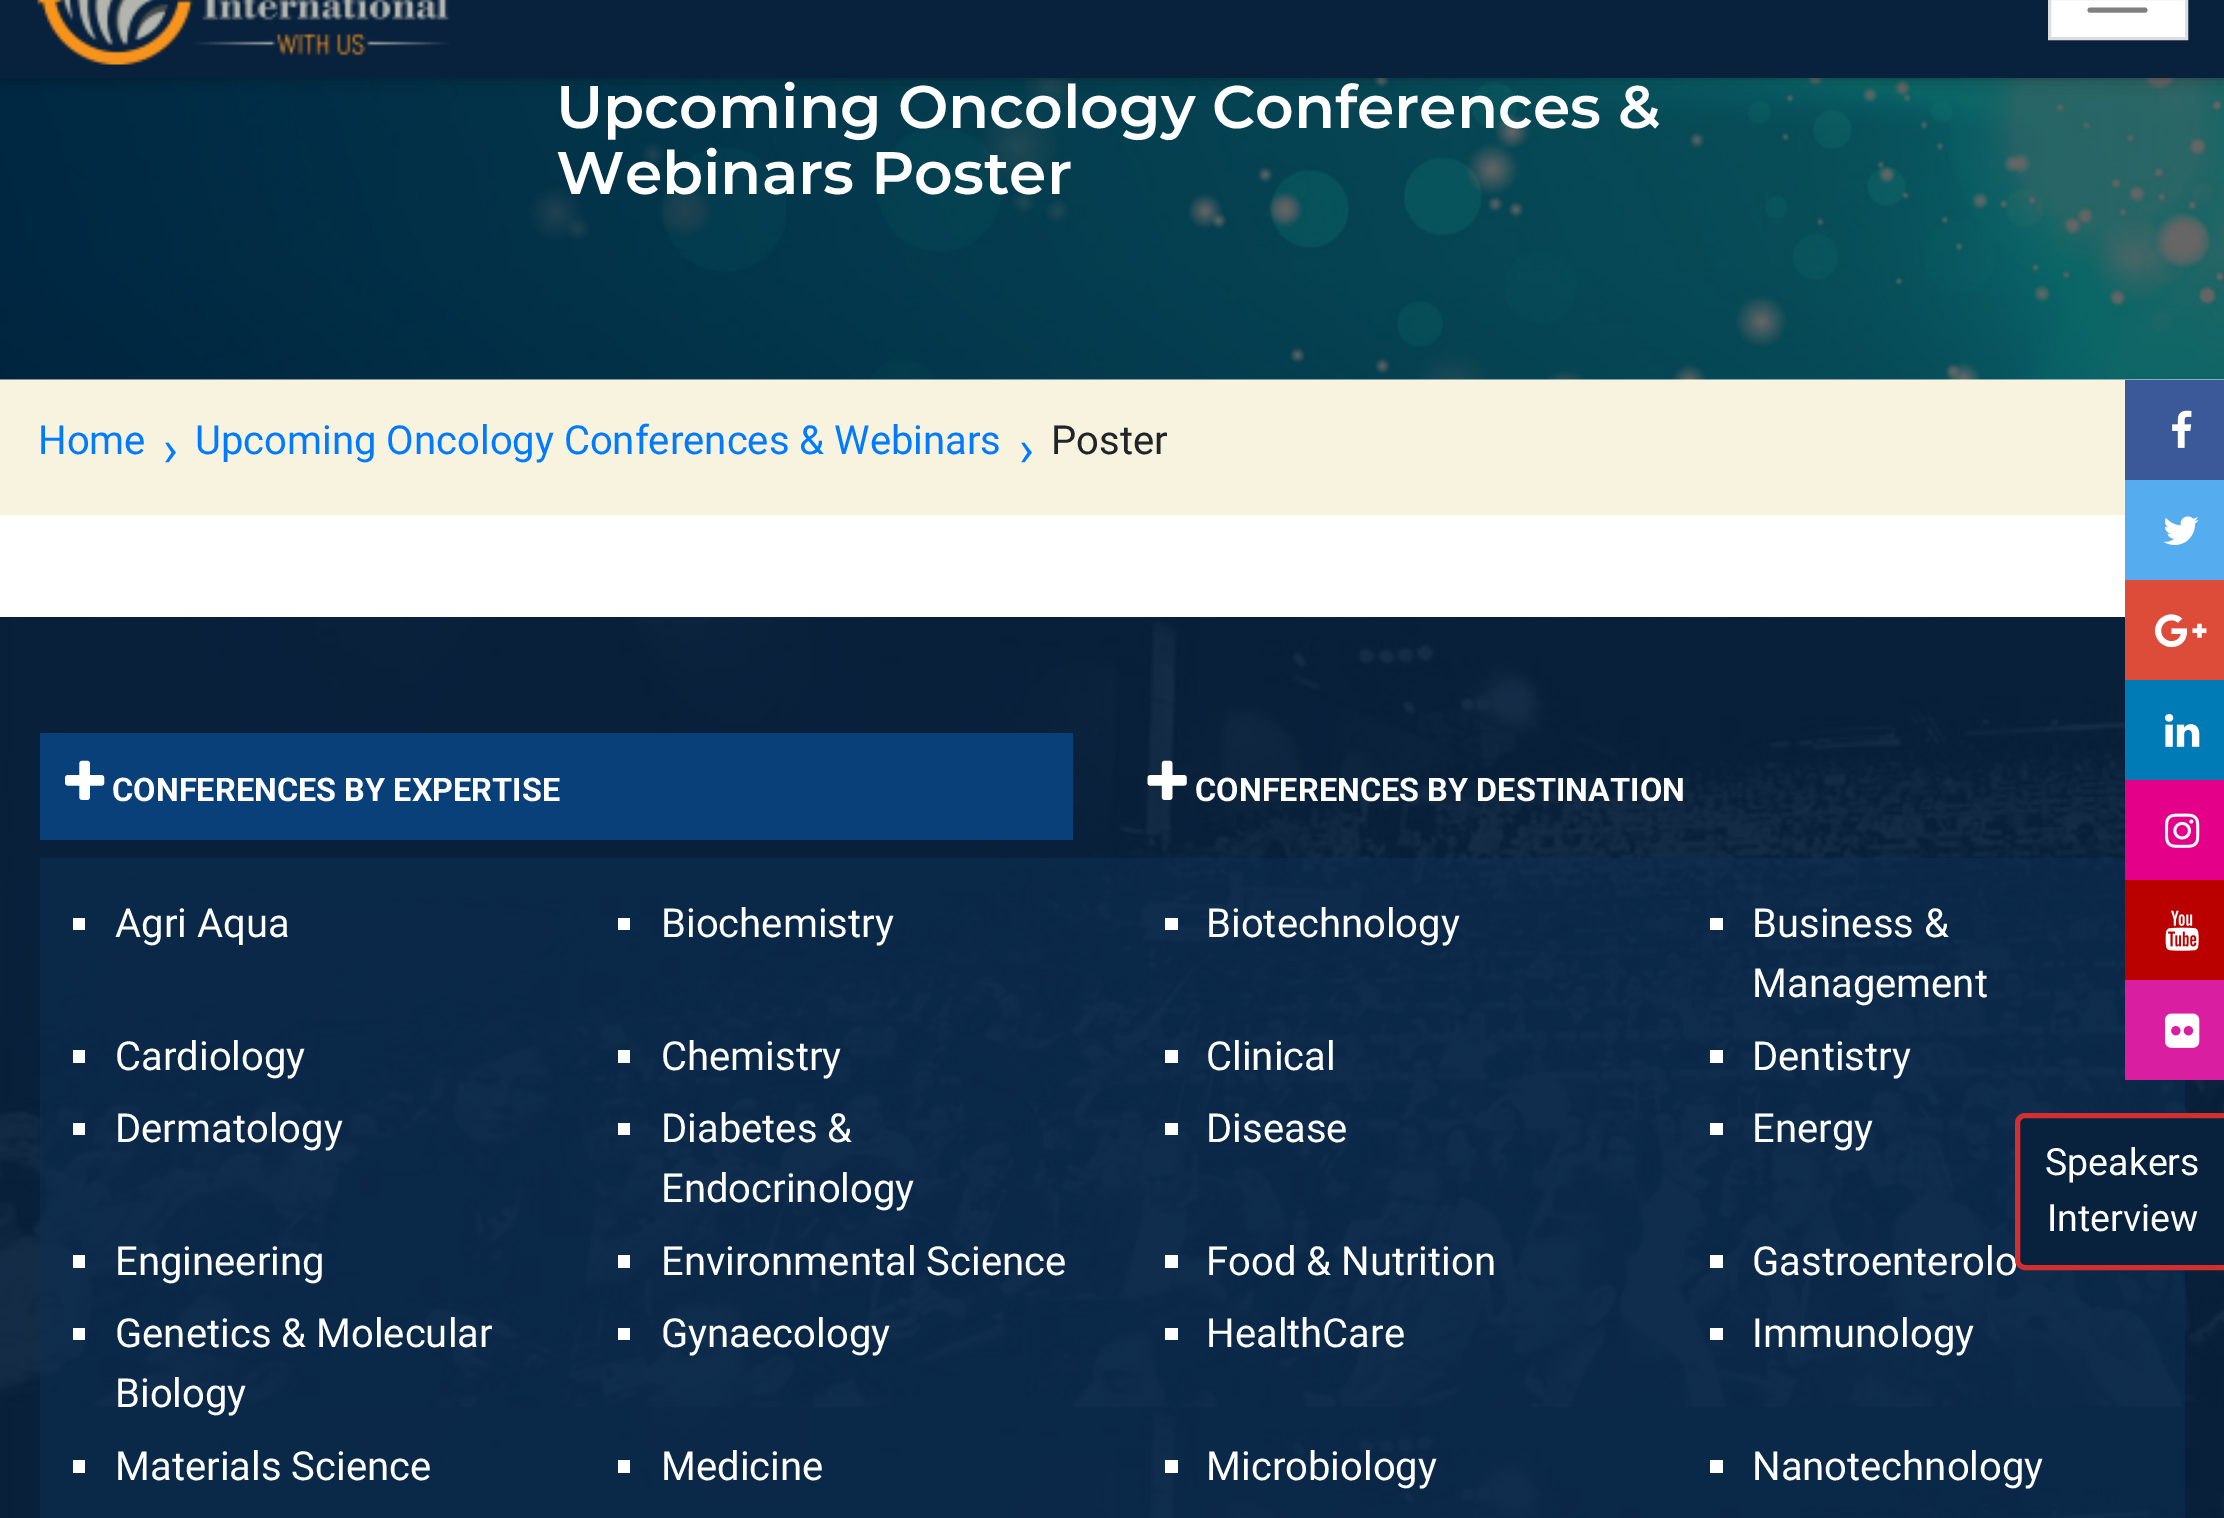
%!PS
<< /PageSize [2224 1518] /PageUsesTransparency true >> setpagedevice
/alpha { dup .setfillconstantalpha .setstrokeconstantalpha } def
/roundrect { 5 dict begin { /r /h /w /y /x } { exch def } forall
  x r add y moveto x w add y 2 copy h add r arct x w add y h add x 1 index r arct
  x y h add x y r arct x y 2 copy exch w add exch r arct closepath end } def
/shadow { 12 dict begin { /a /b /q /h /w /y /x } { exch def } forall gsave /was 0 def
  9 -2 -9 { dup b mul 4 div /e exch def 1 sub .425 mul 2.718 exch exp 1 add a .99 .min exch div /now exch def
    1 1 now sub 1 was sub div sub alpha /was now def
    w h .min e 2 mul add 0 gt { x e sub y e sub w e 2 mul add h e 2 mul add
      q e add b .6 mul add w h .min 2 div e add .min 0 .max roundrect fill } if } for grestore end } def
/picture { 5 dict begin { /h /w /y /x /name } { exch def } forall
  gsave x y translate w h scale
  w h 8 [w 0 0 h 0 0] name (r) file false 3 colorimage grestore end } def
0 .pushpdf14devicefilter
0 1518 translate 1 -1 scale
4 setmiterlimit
1 setgray
0 0 2224 1518 rectfill
(img2.rgb) 0 78 2224 302 picture
0 setgray
0 -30 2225 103 0 10 0.6 shadow
0.031 0.129 0.239 setrgbcolor
0 0 2224 78 rectfill
(img1.rgb) 37 0 413 65 picture
1 setgray
newpath 2049.5 -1.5 moveto 2186.5 -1.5 lineto 2186.5 38.5 lineto 2049.5 38.5 lineto closepath gsave fill grestore
0.867 setgray
3 setlinewidth
stroke
0.502 setgray
5 setlinewidth
1 setlinecap
newpath 2090 -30 moveto 2145 -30 lineto 2090 -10 moveto 2145 -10 lineto 2090 10 moveto 2145 10 lineto stroke
/Montserrat-SemiBold [60 0 0 -60 0 0] selectfont
1 setgray
556 128 moveto (Upcoming Oncology Conferences &) show
556 194 moveto (Webinars Poster) show
0.969 0.953 0.875 setrgbcolor
0 380 2125 135 rectfill
/Roboto-Regular [40 0 0 -40 0 0] selectfont
0 0.482 1 setrgbcolor
38 454 moveto (Home) show
/Roboto-Regular [50 0 0 -50 0 0] selectfont
163 466 moveto (›) show
/Roboto-Regular [40 0 0 -40 0 0] selectfont
195 454 moveto (Upcoming Oncology Conferences & Webinars) show
/Roboto-Regular [50 0 0 -50 0 0] selectfont
1019 466 moveto (›) show
/Roboto-Regular [40 0 0 -40 0 0] selectfont
0.129 0.145 0.161 setrgbcolor
1051 454 moveto (Poster) show
(img3.rgb) 0 617 2224 901 picture
0.035 0.251 0.478 setrgbcolor
40 733 1033 107 rectfill
(img4.rgb) 65 760 40 40 picture
/Roboto-Bold [32.5 0 0 -32.5 0 0] selectfont
1 setgray
112 801 moveto (CONFERENCES BY EXPERTISE) show
(img5.rgb) 1147 760 40 40 picture
1195 801 moveto (CONFERENCES BY DESTINATION) show
0.54 alpha
0.047 0.18 0.325 setrgbcolor
40 858 2145 660 rectfill
1 alpha
1 setgray
73 918 12 12 rectfill
/Roboto-Regular [40 0 0 -40 0 0] selectfont
115 937 moveto (Agri Aqua) show
618 918 12 12 rectfill
661 937 moveto (Biochemistry) show
1165 918 13 12 rectfill
1206 937 moveto (Biotechnology) show
1710 918 13 12 rectfill
1752 937 moveto (Business &) show
1752 997 moveto (Management) show
73 1050 12 13 rectfill
115 1070 moveto (Cardiology) show
618 1050 12 13 rectfill
661 1070 moveto (Chemistry) show
1165 1050 13 13 rectfill
1206 1070 moveto (Clinical) show
1710 1050 13 13 rectfill
1752 1070 moveto (Dentistry) show
73 1123 12 12 rectfill
115 1142 moveto (Dermatology) show
618 1123 12 12 rectfill
661 1142 moveto (Diabetes &) show
661 1202 moveto (Endocrinology) show
1165 1123 13 12 rectfill
1206 1142 moveto (Disease) show
1710 1123 13 12 rectfill
1752 1142 moveto (Energy) show
73 1255 12 13 rectfill
115 1275 moveto (Engineering) show
618 1255 12 13 rectfill
661 1275 moveto (Environmental Science) show
1165 1255 13 13 rectfill
1206 1275 moveto (Food & Nutrition) show
1710 1255 13 13 rectfill
1752 1275 moveto (Gastroenterolo) show
73 1328 12 12 rectfill
115 1347 moveto (Genetics & Molecular) show
115 1407 moveto (Biology) show
618 1328 12 12 rectfill
661 1347 moveto (Gynaecology) show
1165 1328 13 12 rectfill
1206 1347 moveto (HealthCare) show
1710 1328 13 12 rectfill
1752 1347 moveto (Immunology) show
73 1460 12 13 rectfill
115 1480 moveto (Materials Science) show
618 1460 12 13 rectfill
661 1480 moveto (Medicine) show
1165 1460 13 13 rectfill
1206 1480 moveto (Microbiology) show
1710 1460 13 13 rectfill
1752 1480 moveto (Nanotechnology) show
0.231 0.349 0.596 setrgbcolor
2125 380 99 100 rectfill
(img6.rgb) 2172 410 20 38 picture
0.333 0.675 0.933 setrgbcolor
2125 480 99 100 rectfill
(img7.rgb) 2163 516 36 29 picture
0.867 0.294 0.224 setrgbcolor
2125 580 99 100 rectfill
(img8.rgb) 2155 614 52 34 picture
0 0.482 0.71 setrgbcolor
2125 680 99 100 rectfill
(img9.rgb) 2165 714 35 33 picture
0.898 0 0.537 setrgbcolor
2125 780 99 100 rectfill
(img10.rgb) 2165 813 35 35 picture
0.733 0 0 setrgbcolor
2125 880 99 100 rectfill
(img11.rgb) 2165 910 34 41 picture
0.855 0.118 0.635 setrgbcolor
2125 980 99 100 rectfill
(img12.rgb) 2165 1013 35 35 picture
0.031 0.129 0.239 setrgbcolor
newpath 2025 1115.5 moveto 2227.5 1115.5 lineto 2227.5 1267.5 lineto 2025 1267.5 lineto 2021 1267.5 2017.5 1264 2017.5 1260 curveto 2017.5 1123 lineto 2017.5 1119 2021 1115.5 2025 1115.5 curveto closepath gsave fill grestore
0.827 0.184 0.184 setrgbcolor
0 setlinecap
stroke
/Roboto-Regular [37.5 0 0 -37.5 0 0] selectfont
1 setgray
2045 1175 moveto (Speakers) show
2047 1231 moveto (Interview) show
.poppdf14devicefilter showpage
